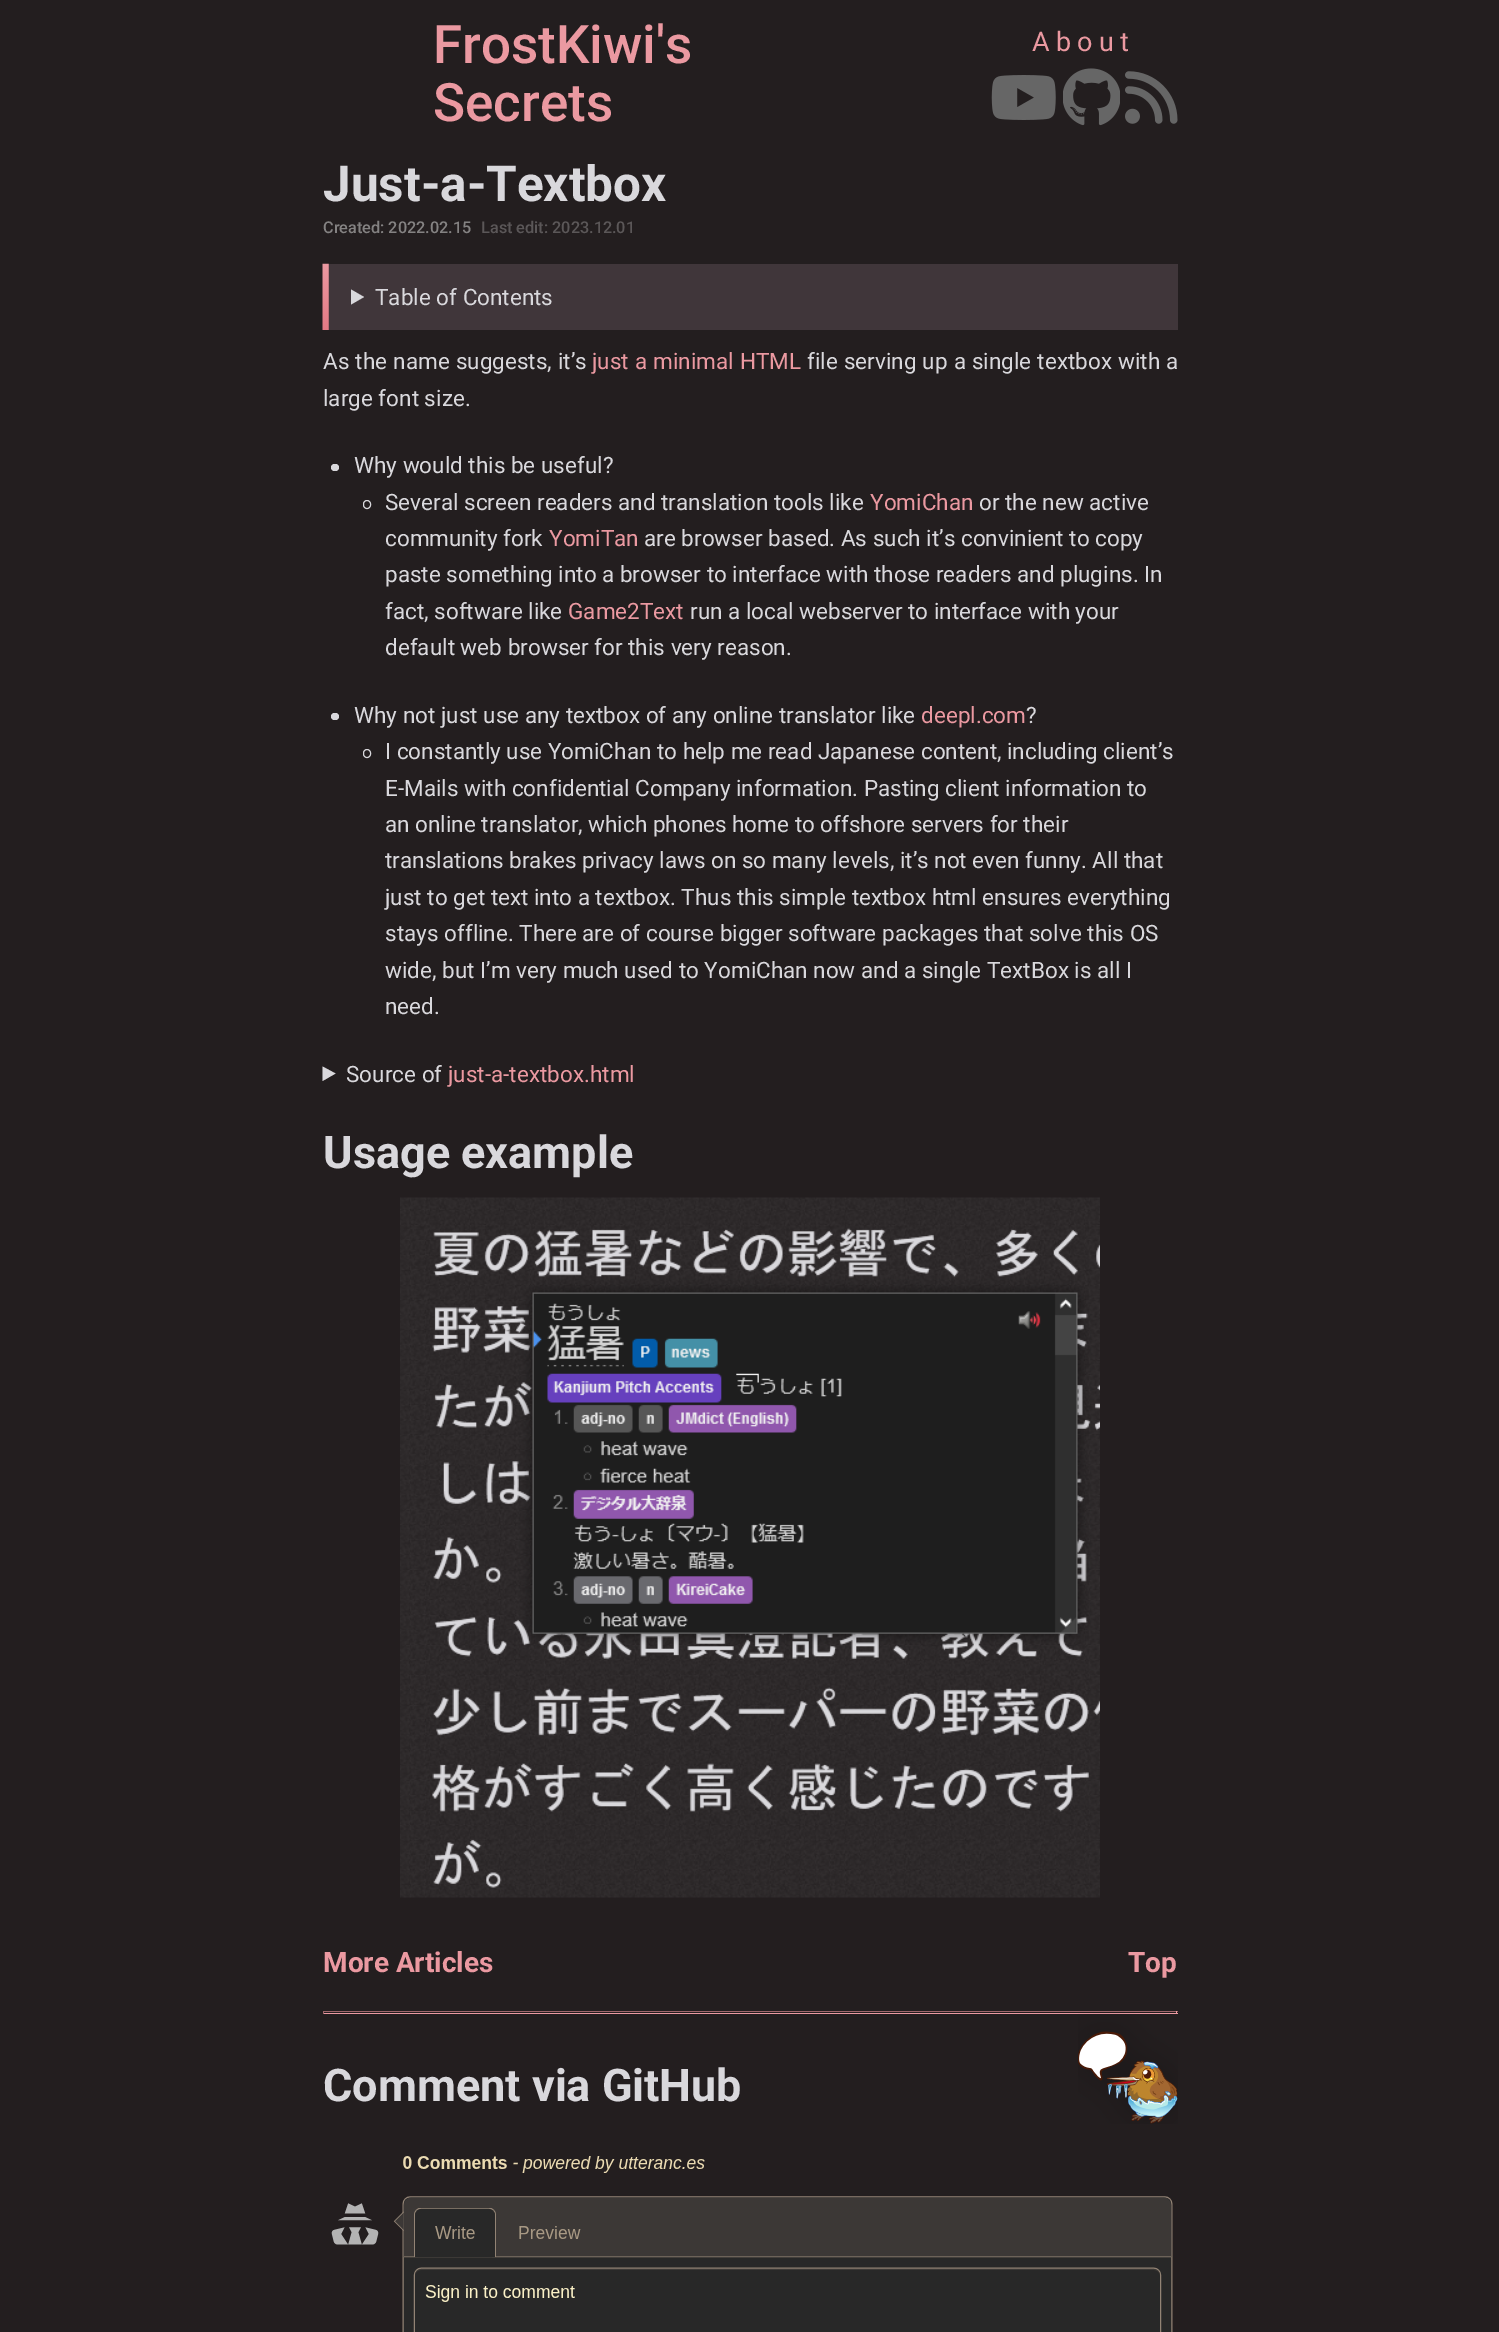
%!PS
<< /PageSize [1499 2332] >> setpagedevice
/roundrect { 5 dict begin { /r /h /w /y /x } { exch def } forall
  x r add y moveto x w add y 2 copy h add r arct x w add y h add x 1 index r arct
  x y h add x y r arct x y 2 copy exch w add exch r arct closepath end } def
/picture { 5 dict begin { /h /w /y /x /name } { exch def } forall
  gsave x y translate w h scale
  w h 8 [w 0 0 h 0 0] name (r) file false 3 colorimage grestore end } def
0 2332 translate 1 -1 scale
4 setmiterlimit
0.137 0.118 0.122 setrgbcolor
0 0 1499 2332 rectfill
/Roboto-Medium [53 0 0 -53 0 0] selectfont
0.922 0.6 0.631 setrgbcolor
433 63 moveto (FrostKiwi's) show
433 121 moveto (Secrets) show
/Roboto-Regular [27 0 0 -27 0 0] selectfont
1032 51 moveto 6.25 0 (About) ashow
(img1.rgb) 991 75 65 45 picture
(img2.rgb) 1063 68 57 58 picture
(img3.rgb) 1125 71 53 53 picture
/Roboto-Bold [49.5 0 0 -49.5 0 0] selectfont
0.851 0.847 0.863 setrgbcolor
323 201 moveto (Just-a-Textbox) show
/Roboto-Medium [16.25 0 0 -16.25 0 0] selectfont
0.518 0.51 0.51 setrgbcolor
323 233 moveto (Created: 2022.02.15) show
0.357 0.341 0.345 setrgbcolor
481 233 moveto (Last edit: 2023.12.01) show
0.251 0.212 0.227 setrgbcolor
328 264 850 66 rectfill
(img4.rgb) 322 263 7 67 picture
0.851 0.847 0.863 setrgbcolor
newpath 351 289.5 moveto 364 297 lineto 351 304.5 lineto closepath fill
/Roboto-Regular [22.5 0 0 -22.5 0 0] selectfont
375 305 moveto (Table of Contents) show
323 369 moveto 0.5 0 32 (As the name suggests, it’s) widthshow
0.922 0.6 0.631 setrgbcolor
592 369 moveto 0.5 0 32 (just a minimal HTML) widthshow
0.851 0.847 0.863 setrgbcolor
807 369 moveto 0.5 0 32 (file serving up a single textbox with a) widthshow
323 406 moveto (large font size.) show
331 464 8 7 3.5 roundrect fill
354 473 moveto (Why would this be useful?) show
363.5 500.5 7 8 3.5 roundrect stroke
385 510 moveto (Several screen readers and translation tools like) show
0.922 0.6 0.631 setrgbcolor
870 510 moveto (YomiChan) show
0.851 0.847 0.863 setrgbcolor
979 510 moveto (or the new active) show
385 546 moveto (community fork) show
0.922 0.6 0.631 setrgbcolor
549 546 moveto (YomiTan) show
0.851 0.847 0.863 setrgbcolor
644 546 moveto (are browser based. As such it’s convinient to copy) show
385 582 moveto (paste something into a browser to interface with those readers and plugins. In) show
385 619 moveto (fact, software like) show
0.922 0.6 0.631 setrgbcolor
568 619 moveto (Game2Text) show
0.851 0.847 0.863 setrgbcolor
690 619 moveto (run a local webserver to interface with your) show
385 655 moveto (default web browser for this very reason.) show
331 713 8 7 3.5 roundrect fill
354 723 moveto (Why not just use any textbox of any online translator like) show
0.922 0.6 0.631 setrgbcolor
921 723 moveto (deepl.com) show
0.851 0.847 0.863 setrgbcolor
1026 723 moveto (?) show
363.5 749.5 7 8 3.5 roundrect stroke
385 759 moveto (I constantly use YomiChan to help me read Japanese content, including client’s) show
385 796 moveto (E-Mails with confidential Company information. Pasting client information to) show
385 832 moveto (an online translator, which phones home to offshore servers for their) show
385 868 moveto (translations brakes privacy laws on so many levels, it’s not even funny. All that) show
385 905 moveto (just to get text into a textbox. Thus this simple textbox html ensures everything) show
385 941 moveto (stays offline. There are of course bigger software packages that solve this OS) show
385 978 moveto (wide, but I’m very much used to YomiChan now and a single TextBox is all I) show
385 1014 moveto (need.) show
newpath 322.5 1066.5 moveto 335.5 1073.5 lineto 322.5 1081 lineto closepath fill
346 1082 moveto (Source of) show
0.922 0.6 0.631 setrgbcolor
448 1082 moveto (just-a-textbox.html) show
/Roboto-Bold [45 0 0 -45 0 0] selectfont
0.851 0.847 0.863 setrgbcolor
323 1168 moveto (Usage example) show
(img5.rgb) 400 1197 700 701 picture
/Roboto-Bold [28 0 0 -28 0 0] selectfont
0.922 0.6 0.631 setrgbcolor
323 1972 moveto (More Articles) show
1128 1972 moveto (Top) show
0.616 0.4 0.42 setrgbcolor
323 2011 855 1 rectfill
0.922 0.6 0.631 setrgbcolor
1176 2011 1 3 rectfill
323 2013 855 1 rectfill
0.616 0.4 0.42 setrgbcolor
323 2011 1 3 rectfill
/Roboto-Bold [45 0 0 -45 0 0] selectfont
0.851 0.847 0.863 setrgbcolor
323 2101 moveto (Comment via GitHub) show
(img6.rgb) 1078 2013 100 111 picture
(img7.rgb) 331 2156 842 176 picture
showpage
